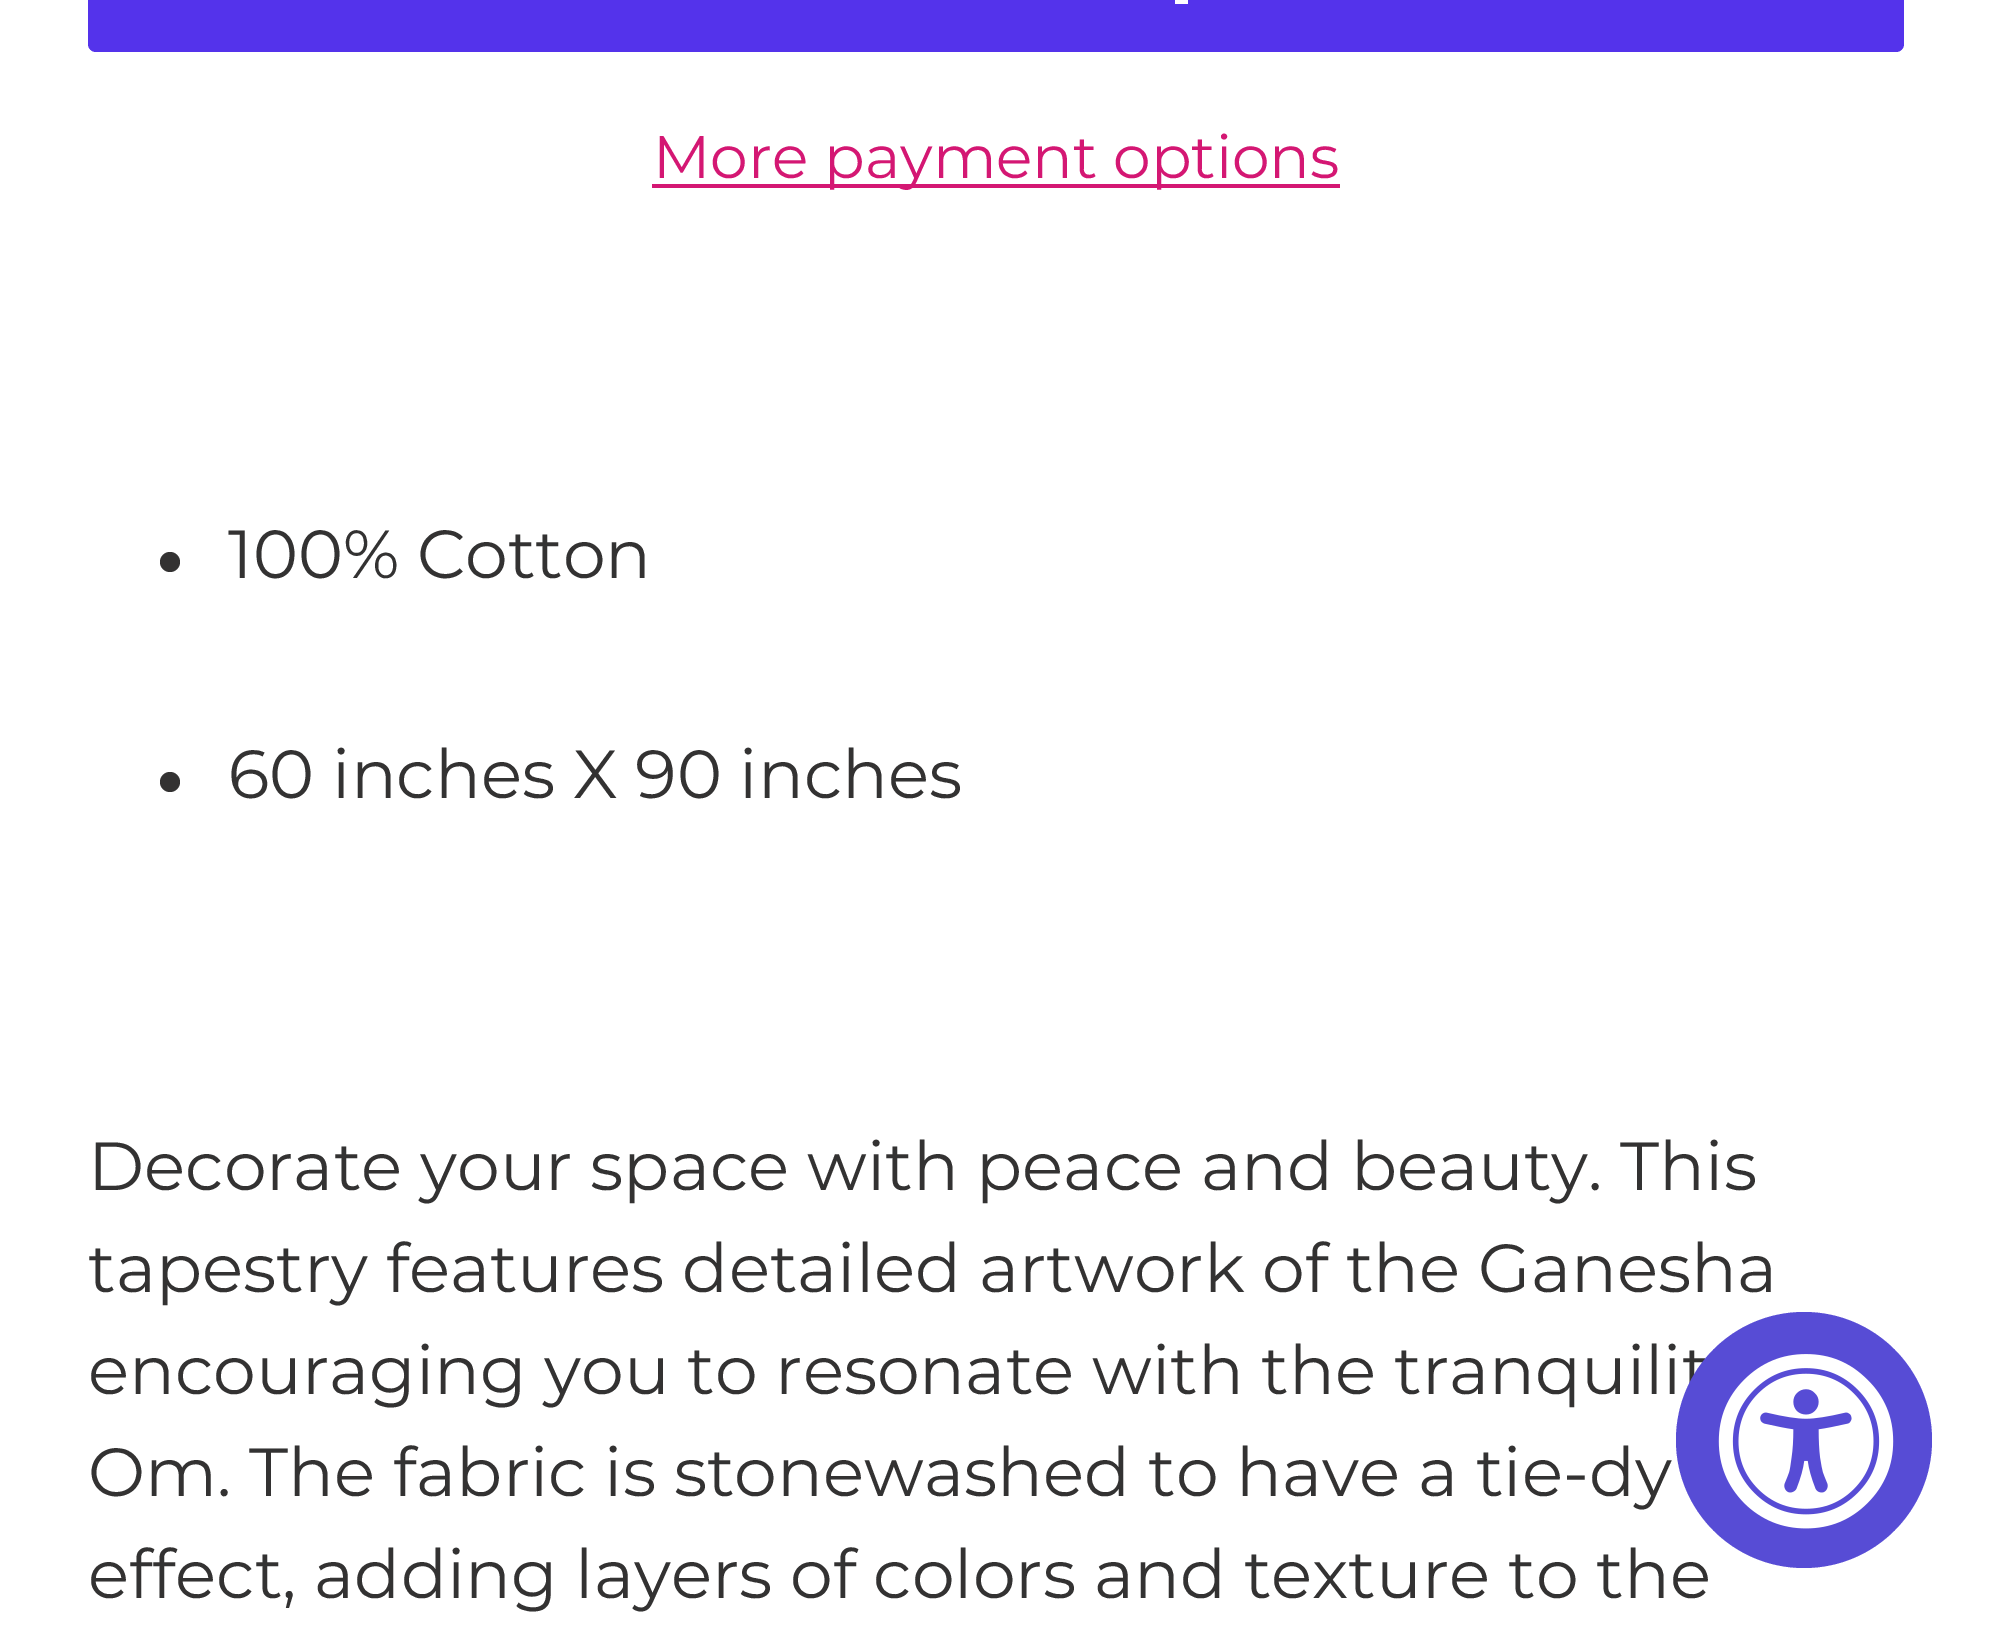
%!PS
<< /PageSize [1989 1627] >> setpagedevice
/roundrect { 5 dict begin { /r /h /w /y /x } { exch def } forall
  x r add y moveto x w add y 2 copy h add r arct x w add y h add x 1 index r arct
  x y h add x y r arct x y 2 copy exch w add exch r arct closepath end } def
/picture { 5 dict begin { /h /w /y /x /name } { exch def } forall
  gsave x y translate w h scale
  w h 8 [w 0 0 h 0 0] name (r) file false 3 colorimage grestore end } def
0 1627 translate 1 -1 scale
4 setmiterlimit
1 setgray
0 0 1989 1627 rectfill
0.329 0.2 0.922 setrgbcolor
88 -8 1816 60 8 roundrect fill
1 setgray
1175 0 13 4 rectfill
0.831 0.09 0.451 setrgbcolor
652 184 688 4 rectfill
/Montserrat-Regular [60 0 0 -60 0 0] selectfont
653 178 moveto (More payment options) show
0.2 0.196 0.196 setrgbcolor
newpath 170 562 10 0 360 arc closepath fill
/Montserrat-Regular [68 0 0 -68 0 0] selectfont
228 578 moveto (100% Cotton) show
newpath 170 782 10 0 360 arc closepath fill
228 798 moveto (60 inches X 90 inches) show
88 1190 moveto (Decorate your space with peace and beauty. This) show
88 1292 moveto (tapestry features detailed artwork of the Ganesha) show
88 1394 moveto (encouraging you to resonate with the tranquilit) show
88 1496 moveto (Om. The fabric is stonewashed to have a tie-dy) show
88 1598 moveto (effect, adding layers of colors and texture to the) show
0.341 0.298 0.835 setrgbcolor
newpath 1804 1440 128 0 360 arc closepath fill
(img1.rgb) 1718 1354 176 175 picture
showpage
